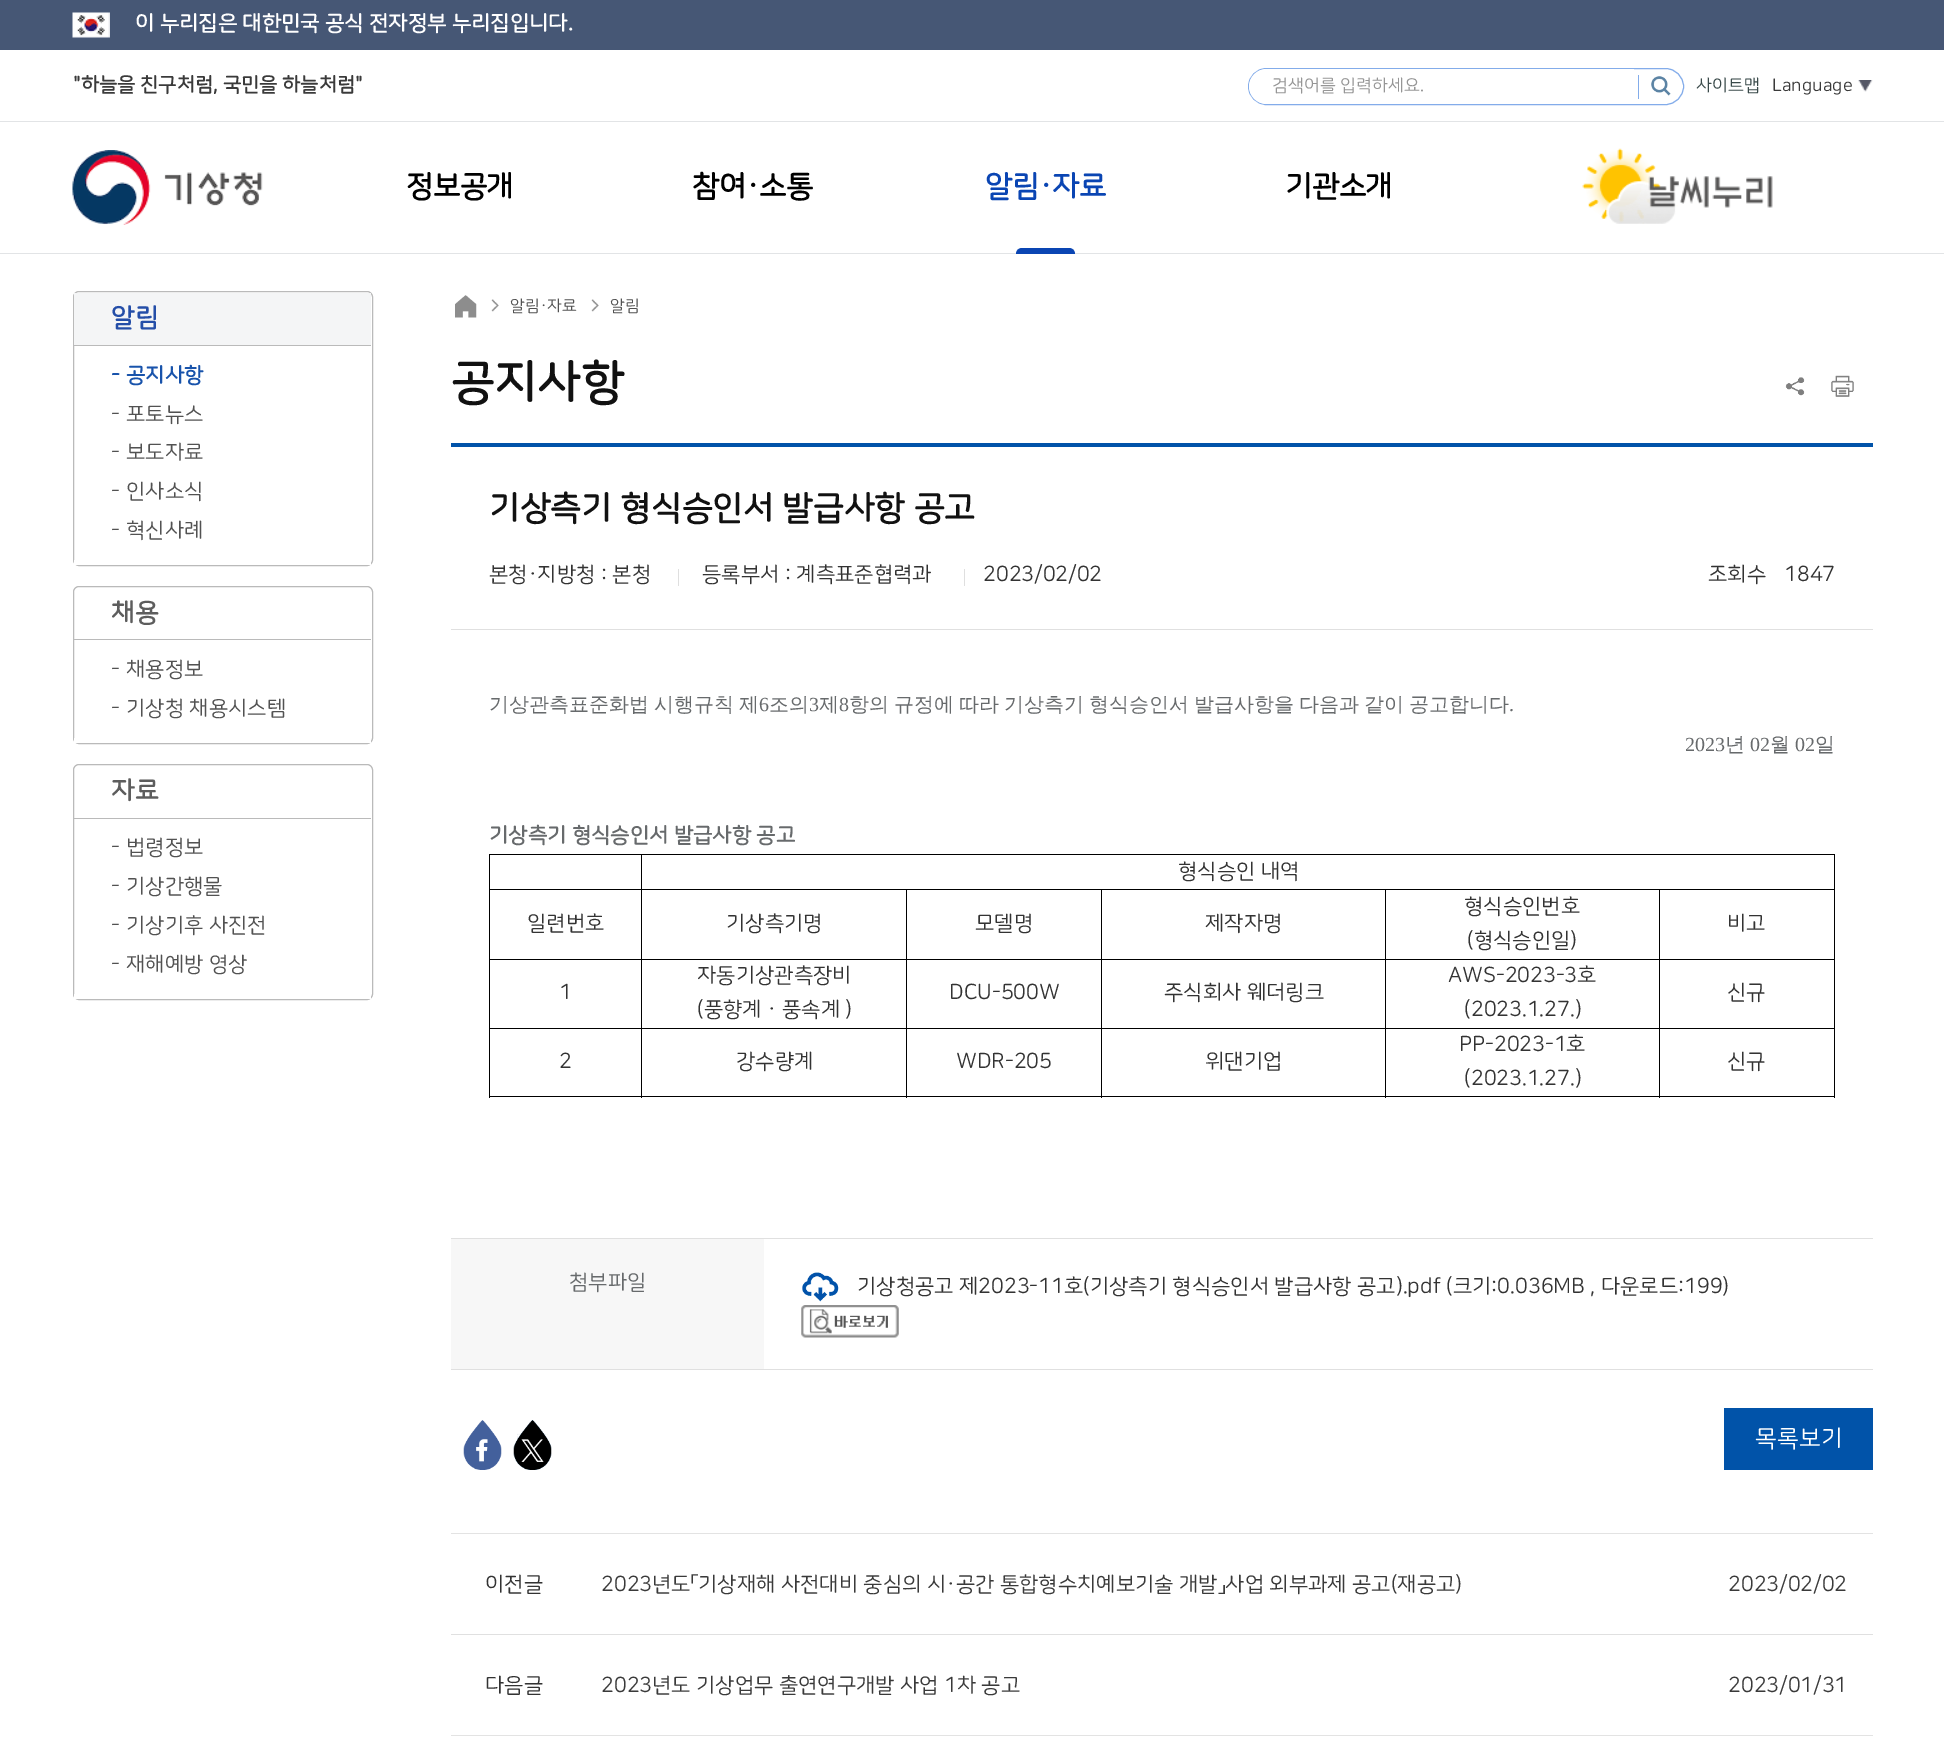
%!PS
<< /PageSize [1944 1747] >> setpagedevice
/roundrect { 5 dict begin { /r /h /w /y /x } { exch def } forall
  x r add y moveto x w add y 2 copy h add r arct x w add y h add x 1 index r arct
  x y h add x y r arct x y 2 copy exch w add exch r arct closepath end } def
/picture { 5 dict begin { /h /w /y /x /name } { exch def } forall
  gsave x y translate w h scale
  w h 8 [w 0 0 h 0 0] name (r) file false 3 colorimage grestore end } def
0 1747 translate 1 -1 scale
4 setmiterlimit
1 setgray
0 0 1944 1747 rectfill
0.275 0.341 0.459 setrgbcolor
0 0 1944 50 rectfill
(img1.rgb) 72 12 38 26 picture
/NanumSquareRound-Bold [21.25 0 0 -21.25 0 0] selectfont
1 setgray
135 30 moveto (이 누리집은 대한민국 공식 전자정부 누리집입니다.) show
/NanumSquareRound-Bold [20 0 0 -20 0 0] selectfont
0.227 setgray
73 91 moveto ("하늘을 친구처럼, 국민을 하늘처럼") show
0.514 0.675 0.918 setrgbcolor
1248.5 68.5 435 36 18 roundrect stroke
1 setgray
newpath 1266.5 69 moveto 1634 69 lineto 1634 104 lineto 1266.5 104 lineto 1257 104 1249 96 1249 86.5 curveto 1249 77 1257 69 1266.5 69 curveto closepath fill
/NanumSquareRound-Regular [17.5 0 0 -17.5 0 0] selectfont
0.588 setgray
1272 91 moveto (검색어를 입력하세요.) show
(img2.rgb) 1651 76 20 20 picture
0.514 0.675 0.918 setrgbcolor
1638 75 1 24 rectfill
0.227 0.29 0.29 setrgbcolor
1696 91 moveto (사이트맵) show
0.227 setgray
1772 91 moveto (Language) show
(img3.rgb) 1858 80 15 12 picture
0.886 0.894 0.902 setrgbcolor
0 121 1944 1 rectfill
0 253 1944 1 rectfill
(img4.rgb) 72 150 191 75 picture
/NanumSquareRound-Bold [30 0 0 -30 0 0] selectfont
0 setgray
406 196 moveto -0.5 0 (정보공개) ashow
692 196 moveto -0.5 0 (참여·소통) ashow
0.039 0.271 0.702 setrgbcolor
985 196 moveto -0.5 0 (알림·자료) ashow
newpath 1022 248 moveto 1069 248 lineto 1072.5 248 1075 250.5 1075 254 curveto 1016 254 lineto 1016 250.5 1018.5 248 1022 248 curveto closepath fill
0 setgray
1285 196 moveto -0.5 0 (기관소개) ashow
(img5.rgb) 1582 148 191 76 picture
0.729 setgray
73.5 291.5 299 274 5.5 roundrect stroke
0.957 0.961 0.965 setrgbcolor
74 293 297 52 rectfill
0.729 setgray
74 345 297 1 rectfill
/NanumSquareRound-Bold [26 0 0 -26 0 0] selectfont
0.141 0.306 0.659 setrgbcolor
111 326 moveto (알림) show
1 setgray
74 560 297 5 rectfill
/NanumSquareRound-Bold [21.25 0 0 -21.25 0 0] selectfont
0.094 0.325 0.671 setrgbcolor
111 382 moveto (-) show
126 382 moveto (공지사항) show
/NanumSquareRound-Regular [21.25 0 0 -21.25 0 0] selectfont
0.322 setgray
111 421 moveto (-) show
126 421 moveto (포토뉴스) show
111 459 moveto (-) show
126 459 moveto (보도자료) show
111 498 moveto (-) show
126 498 moveto (인사소식) show
111 537 moveto (-) show
126 537 moveto (혁신사례) show
0.729 setgray
73.5 586.5 299 157 5.5 roundrect stroke
74 639 297 1 rectfill
/NanumSquareRound-Bold [26 0 0 -26 0 0] selectfont
0.365 setgray
111 621 moveto (채용) show
1 setgray
74 738 297 5 rectfill
/NanumSquareRound-Regular [21.25 0 0 -21.25 0 0] selectfont
0.322 setgray
111 676 moveto (-) show
126 676 moveto (채용정보) show
111 715 moveto (-) show
126 715 moveto (기상청 채용시스템) show
0.729 setgray
73.5 764.5 299 235 5.5 roundrect stroke
74 818 297 1 rectfill
/NanumSquareRound-Bold [26 0 0 -26 0 0] selectfont
0.365 setgray
111 799 moveto (자료) show
1 setgray
74 994 297 5 rectfill
/NanumSquareRound-Regular [21.25 0 0 -21.25 0 0] selectfont
0.322 setgray
111 854 moveto (-) show
126 854 moveto (법령정보) show
111 893 moveto (-) show
126 893 moveto (기상간행물) show
111 932 moveto (-) show
126 932 moveto (기상기후 사진전) show
111 971 moveto (-) show
126 971 moveto (재해예방 영상) show
(img6.rgb) 455 295 22 23 picture
(img7.rgb) 491 299 8 13 picture
/NanumSquareRound-Regular [16.25 0 0 -16.25 0 0] selectfont
510 311 moveto (알림·자료) show
(img8.rgb) 591 299 8 13 picture
610 311 moveto (알림) show
/NanumSquareRound-Bold [47.5 0 0 -47.5 0 0] selectfont
0.067 setgray
451 398 moveto (공지사항) show
(img9.rgb) 1785 377 20 19 picture
(img10.rgb) 1831 375 23 22 picture
0.004 0.325 0.663 setrgbcolor
451 443 1422 4 rectfill
/NanumSquareRound-Bold [33.75 0 0 -33.75 0 0] selectfont
0.067 setgray
489 519 moveto (기상측기 형식승인서 발급사항 공고) show
/NanumSquareRound-Regular [21.25 0 0 -21.25 0 0] selectfont
0.2 setgray
489 581 moveto (본청·지방청 : 본청) show
0.875 setgray
678 569 1 17 rectfill
0.2 setgray
702 581 moveto (등록부서 : 계측표준협력과) show
0.875 setgray
964 569 1 17 rectfill
0.2 setgray
983 581 moveto (2023/02/02) show
1708 581 moveto (조회수) show
1784 581 moveto (1847) show
0.878 setgray
451 629 1422 1 rectfill
451 1238 1422 1 rectfill
/WenQuanYiZenHei-Medium [20 0 0 -20 0 0] selectfont
0.404 0.416 0.424 setrgbcolor
489 711 moveto -1 0 32 (기상관측표준화법 시행규칙 제) widthshow
/LiberationSerif-Regular [20 0 0 -20 0 0] selectfont
759 711 moveto (6) show
/WenQuanYiZenHei-Medium [20 0 0 -20 0 0] selectfont
769 711 moveto (조의) show
/LiberationSerif-Regular [20 0 0 -20 0 0] selectfont
809 711 moveto (3) show
/WenQuanYiZenHei-Medium [20 0 0 -20 0 0] selectfont
819 711 moveto (제) show
/LiberationSerif-Regular [20 0 0 -20 0 0] selectfont
839 711 moveto (8) show
/WenQuanYiZenHei-Medium [20 0 0 -20 0 0] selectfont
849 711 moveto -1 0 32 (항의 규정에 따라 기상측기 형식승인서 발급사항을 다음과 같이 공고합니다) widthshow
/LiberationSerif-Regular [20 0 0 -20 0 0] selectfont
1509 711 moveto (.) show
1685 751 moveto (2023) show
/WenQuanYiZenHei-Medium [20 0 0 -20 0 0] selectfont
1725 751 moveto (년) show
/LiberationSerif-Regular [20 0 0 -20 0 0] selectfont
1750 751 moveto (02) show
/WenQuanYiZenHei-Medium [20 0 0 -20 0 0] selectfont
1770 751 moveto (월) show
/LiberationSerif-Regular [20 0 0 -20 0 0] selectfont
1795 751 moveto (02) show
/WenQuanYiZenHei-Medium [20 0 0 -20 0 0] selectfont
1815 751 moveto (일) show
/NanumSquareRound-Bold [21.25 0 0 -21.25 0 0] selectfont
489 842 moveto (기상측기 형식승인서 발급사항 공고) show
0 setgray
489 854 1346 1 rectfill
1834 889 1 209 rectfill
1834 854 1 36 rectfill
1659 1096 176 1 rectfill
1659 1028 1 70 rectfill
1659 1028 176 1 rectfill
1659 959 1 70 rectfill
1659 959 176 1 rectfill
1659 889 1 71 rectfill
1385 1096 275 1 rectfill
1385 1028 1 70 rectfill
1385 1028 275 1 rectfill
1385 959 1 70 rectfill
1385 959 275 1 rectfill
1385 889 1 71 rectfill
1101 1096 285 1 rectfill
1101 1028 1 70 rectfill
1101 1028 285 1 rectfill
1101 959 1 70 rectfill
1101 959 285 1 rectfill
1101 889 1 71 rectfill
906 1096 197 1 rectfill
906 1028 1 70 rectfill
906 1028 197 1 rectfill
906 959 1 70 rectfill
906 959 197 1 rectfill
906 889 1 71 rectfill
641 1096 267 1 rectfill
641 1028 1 70 rectfill
641 1028 267 1 rectfill
641 959 1 70 rectfill
641 959 267 1 rectfill
641 889 1 71 rectfill
641 889 1194 1 rectfill
641 854 1 36 rectfill
489 1096 154 1 rectfill
489 1028 1 70 rectfill
489 1028 154 1 rectfill
489 959 1 70 rectfill
489 959 154 1 rectfill
489 889 1 71 rectfill
489 889 154 1 rectfill
489 854 1 36 rectfill
/NanumSquareRound-Regular [21.25 0 0 -21.25 0 0] selectfont
0.2 setgray
1178 878 moveto (형식승인 내역) show
527 930 moveto (일련번호) show
726 930 moveto (기상측기명) show
975 930 moveto (모델명) show
1205 930 moveto (제작자명) show
1464 913 moveto (형식승인번호) show
1467 947 moveto (\(형식승인일\)) show
1727 930 moveto (비고) show
559 999 moveto (1) show
697 982 moveto (자동기상관측장비) show
697 1016 moveto (\(풍향계 · 풍속계 \)) show
949 999 moveto (DCU-500W) show
1164 999 moveto (주식회사 웨더링크) show
1448 982 moveto (AWS-2023-3호) show
1464 1016 moveto (\(2023.1.27.\)) show
1727 999 moveto (신규) show
559 1068 moveto (2) show
736 1068 moveto (강수량계) show
956 1068 moveto (WDR-205) show
1205 1068 moveto (위댄기업) show
1459 1051 moveto (PP-2023-1호) show
1464 1085 moveto (\(2023.1.27.\)) show
1727 1068 moveto (신규) show
0.878 setgray
451 1369 1422 1 rectfill
0.969 setgray
451 1239 313 130 rectfill
0.404 0.416 0.424 setrgbcolor
569 1289 moveto (첨부파일) show
(img11.rgb) 802 1272 37 30 picture
0.2 setgray
857 1293 moveto (기상청공고 제2023-11호\(기상측기 형식승인서 발급사항 공고\).pdf \(크기:0.036MB , 다운로드:199\)) show
(img12.rgb) 801 1305 98 33 picture
(img13.rgb) 463 1420 39 50 picture
(img14.rgb) 513 1420 39 50 picture
0.004 0.325 0.663 setrgbcolor
1724 1408 149 62 rectfill
/NanumSquareRound-Regular [24 0 0 -24 0 0] selectfont
1 setgray
1755 1446 moveto (목록보기) show
0.89 setgray
451 1533 1422 1 rectfill
451 1735 1422 1 rectfill
0.878 setgray
451 1634 1422 1 rectfill
/NanumSquareRound-Regular [21.25 0 0 -21.25 0 0] selectfont
0.2 setgray
485 1591 moveto (이전글) show
0.227 setgray
601 1591 moveto (2023년도「기상재해 사전대비 중심의 시·공간 통합형수치예보기술 개발」사업 외부과제 공고\(재공고\)) show
1728 1591 moveto (2023/02/02) show
0.2 setgray
485 1692 moveto (다음글) show
0.227 setgray
601 1692 moveto (2023년도 기상업무 출연연구개발 사업 1차 공고) show
1728 1692 moveto (2023/01/31) show
showpage
